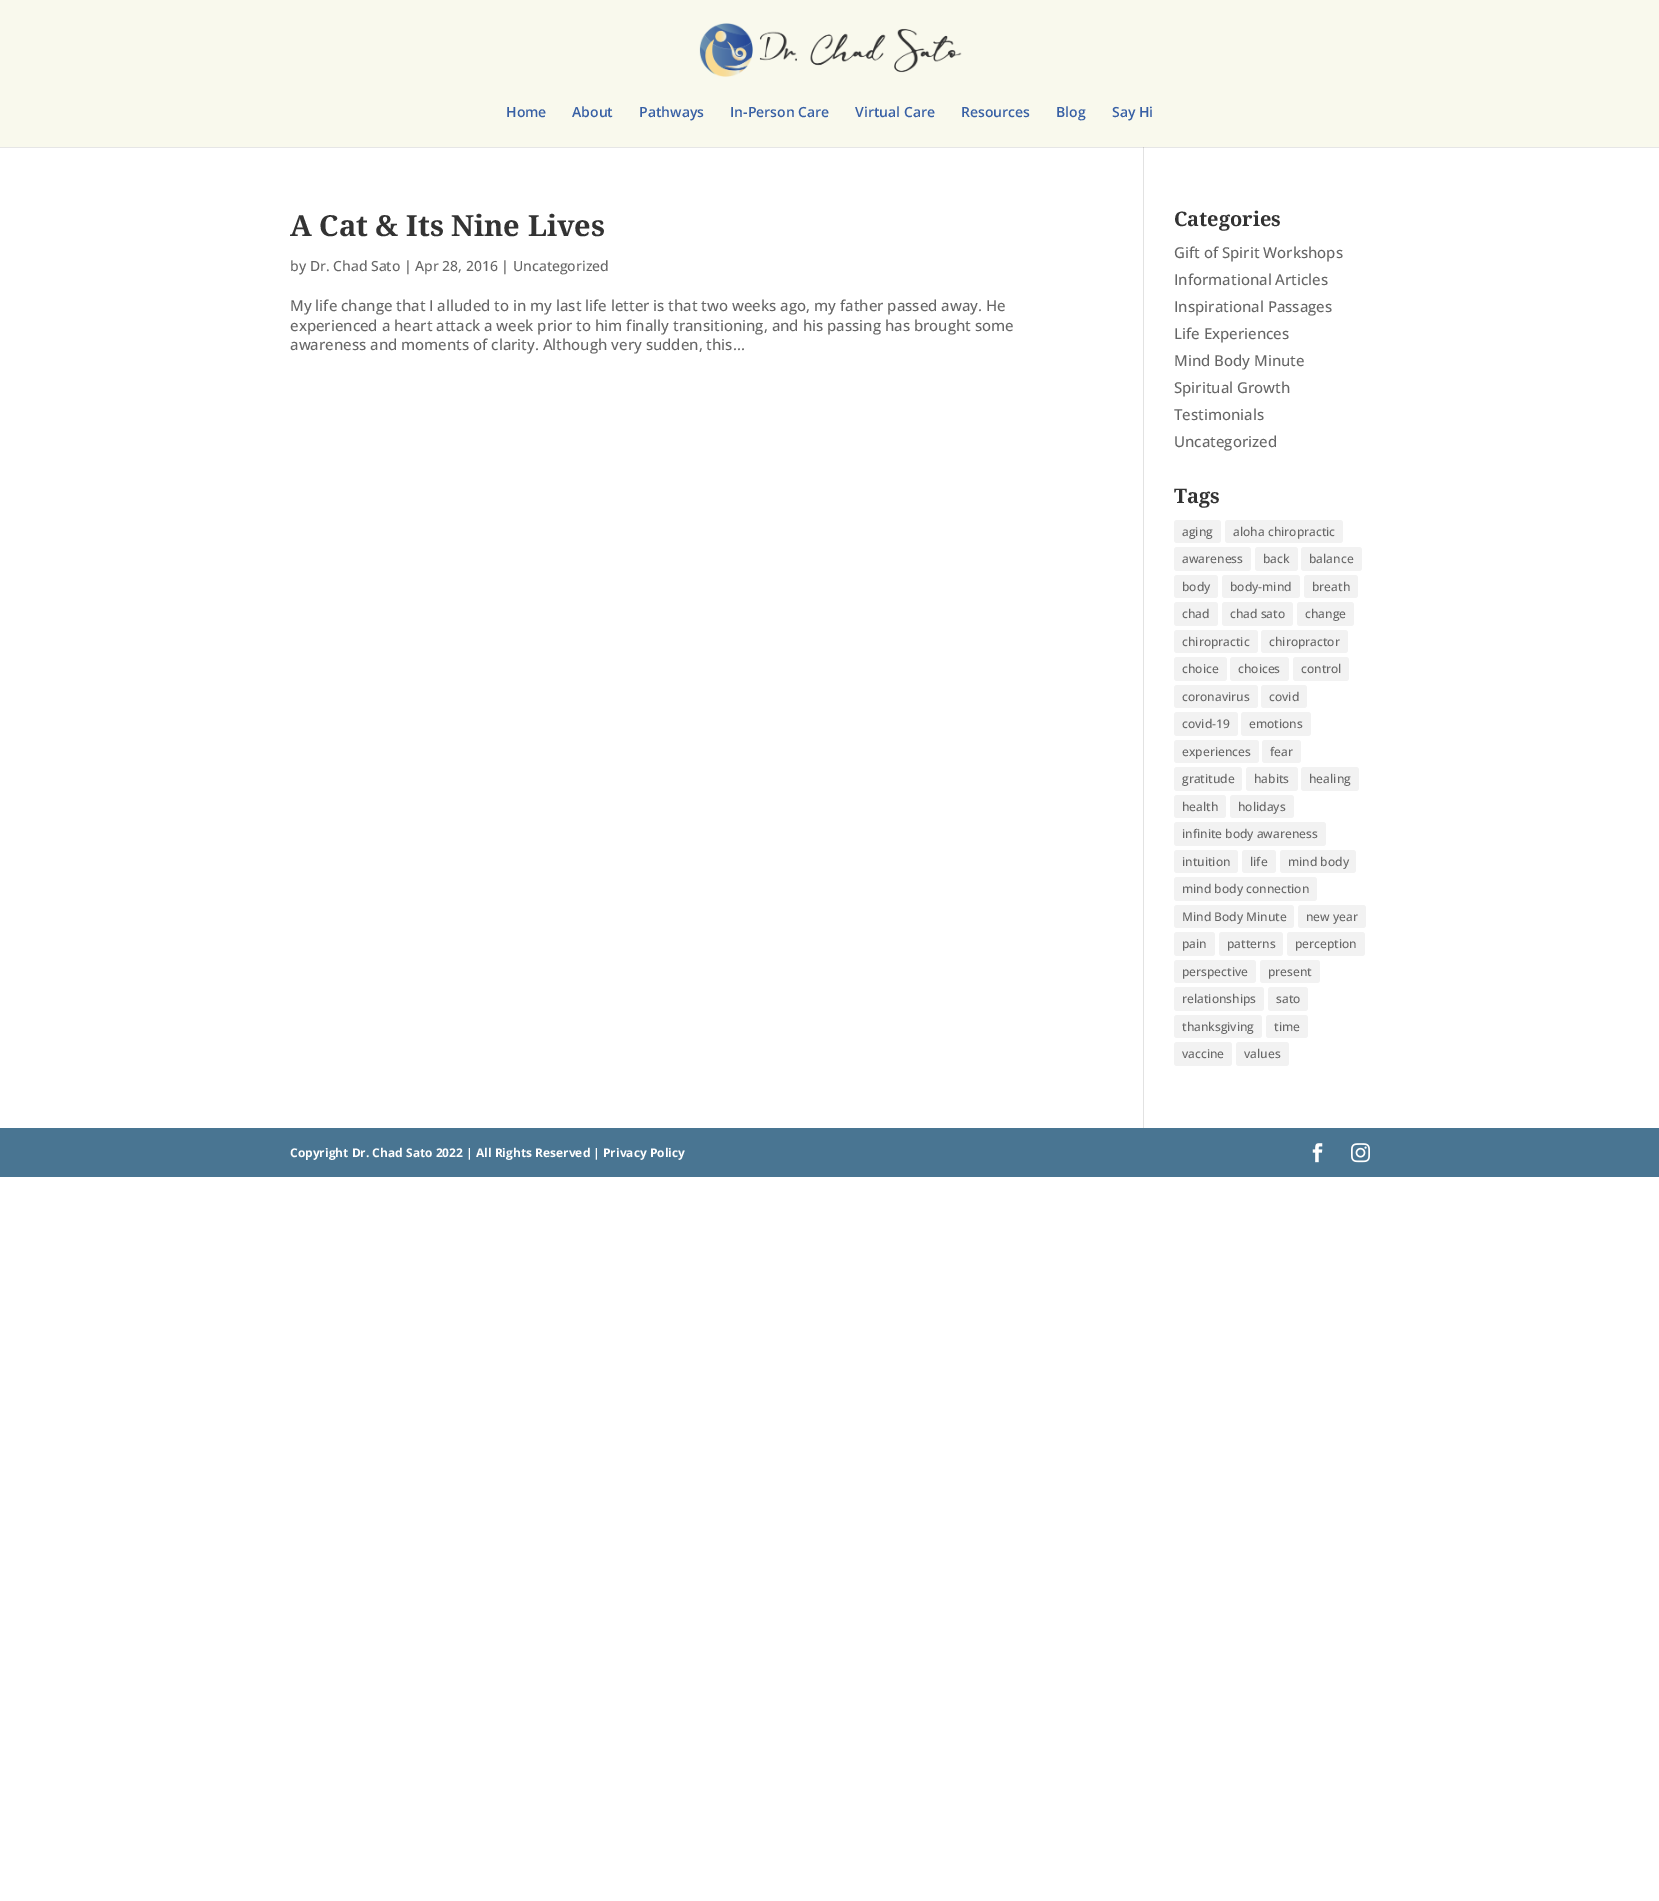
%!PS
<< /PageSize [1659 1901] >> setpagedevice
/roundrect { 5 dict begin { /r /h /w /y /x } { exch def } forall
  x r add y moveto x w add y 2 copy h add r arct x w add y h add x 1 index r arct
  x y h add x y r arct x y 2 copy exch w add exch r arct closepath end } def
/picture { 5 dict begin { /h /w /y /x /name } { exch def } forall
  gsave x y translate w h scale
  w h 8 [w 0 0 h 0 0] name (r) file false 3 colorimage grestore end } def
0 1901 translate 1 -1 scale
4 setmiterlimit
1 setgray
0 0 1659 1901 rectfill
0.902 setgray
0 147 1659 1 rectfill
0.976 0.976 0.929 setrgbcolor
0 0 1659 147 rectfill
(img1.rgb) 699 23 263 54 picture
/OpenSans-SemiBold [14 0 0 -14 0 0] selectfont
0.22 0.376 0.647 setrgbcolor
506 117 moveto (Home) show
572 117 moveto (About) show
639 117 moveto (Pathways) show
730 117 moveto (In-Person Care) show
855 117 moveto (Virtual Care) show
961 117 moveto (Resources) show
1056 117 moveto (Blog) show
1112 117 moveto (Say Hi) show
0.886 setgray
1143 147 1 981 rectfill
0.796 setgray
1143 147 1 1 rectfill
/NotoSerif-Bold [29 0 0 -29 0 0] selectfont
0.2 setgray
290 236 moveto (A Cat & Its Nine Lives) show
/OpenSans-Medium [14 0 0 -14 0 0] selectfont
0.4 setgray
290 271 moveto (by Dr. Chad Sato | Apr 28, 2016 | Uncategorized) show
/OpenSans-Medium [15 0 0 -15 0 0] selectfont
290 311 moveto (My life change that I alluded to in my last life letter is that two weeks ago, my father passed away. He) show
290 331 moveto (experienced a heart attack a week prior to him finally transitioning, and his passing has brought some) show
290 350 moveto (awareness and moments of clarity. Although very sudden, this...) show
/NotoSerif-Bold [20 0 0 -20 0 0] selectfont
0.2 setgray
1174 226 moveto (Categories) show
/OpenSans-Medium [15 0 0 -15 0 0] selectfont
0.4 setgray
1174 258 moveto (Gift of Spirit Workshops) show
1174 285 moveto (Informational Articles) show
1174 312 moveto (Inspirational Passages) show
1174 339 moveto (Life Experiences) show
1174 366 moveto (Mind Body Minute) show
1174 393 moveto (Spiritual Growth) show
1174 420 moveto (Testimonials) show
1174 447 moveto (Uncategorized) show
/NotoSerif-Bold [20 0 0 -20 0 0] selectfont
0.2 setgray
1174 503 moveto (Tags) show
0.949 setgray
1174 520 47 23 3 roundrect fill
/OpenSans-Medium [12 0 0 -12 0 0] selectfont
0.4 setgray
1182 536 moveto (aging) show
0.949 setgray
1225 520 118 23 3 roundrect fill
0.4 setgray
1233 536 moveto (aloha chiropractic) show
0.949 setgray
1174 547 77 24 3 roundrect fill
0.4 setgray
1182 563 moveto (awareness) show
0.949 setgray
1255 547 43 24 3 roundrect fill
0.4 setgray
1263 563 moveto (back) show
0.949 setgray
1301 547 61 24 3 roundrect fill
0.4 setgray
1309 563 moveto (balance) show
0.949 setgray
1174 575 44 23 3 roundrect fill
0.4 setgray
1182 591 moveto (body) show
0.949 setgray
1222 575 78 23 3 roundrect fill
0.4 setgray
1230 591 moveto (body-mind) show
0.949 setgray
1304 575 54 23 3 roundrect fill
0.4 setgray
1312 591 moveto (breath) show
0.949 setgray
1174 602 44 24 3 roundrect fill
0.4 setgray
1182 618 moveto (chad) show
0.949 setgray
1222 602 71 24 3 roundrect fill
0.4 setgray
1230 618 moveto (chad sato) show
0.949 setgray
1297 602 57 24 3 roundrect fill
0.4 setgray
1305 618 moveto (change) show
0.949 setgray
1174 630 84 23 3 roundrect fill
0.4 setgray
1182 646 moveto (chiropractic) show
0.949 setgray
1261 630 87 23 3 roundrect fill
0.4 setgray
1269 646 moveto (chiropractor) show
0.949 setgray
1174 657 53 24 3 roundrect fill
0.4 setgray
1182 673 moveto (choice) show
0.949 setgray
1230 657 59 24 3 roundrect fill
0.4 setgray
1238 673 moveto (choices) show
0.949 setgray
1293 657 56 24 3 roundrect fill
0.4 setgray
1301 673 moveto (control) show
0.949 setgray
1174 685 84 23 3 roundrect fill
0.4 setgray
1182 701 moveto (coronavirus) show
0.949 setgray
1261 685 46 23 3 roundrect fill
0.4 setgray
1269 701 moveto (covid) show
0.949 setgray
1174 712 64 24 3 roundrect fill
0.4 setgray
1182 728 moveto (covid-19) show
0.949 setgray
1241 712 70 24 3 roundrect fill
0.4 setgray
1249 728 moveto (emotions) show
0.949 setgray
1174 740 85 23 3 roundrect fill
0.4 setgray
1182 756 moveto (experiences) show
0.949 setgray
1262 740 39 23 3 roundrect fill
0.4 setgray
1270 756 moveto (fear) show
0.949 setgray
1174 767 68 24 3 roundrect fill
0.4 setgray
1182 783 moveto (gratitude) show
0.949 setgray
1246 767 52 24 3 roundrect fill
0.4 setgray
1254 783 moveto (habits) show
0.949 setgray
1301 767 58 24 3 roundrect fill
0.4 setgray
1309 783 moveto (healing) show
0.949 setgray
1174 795 52 23 3 roundrect fill
0.4 setgray
1182 811 moveto (health) show
0.949 setgray
1230 795 64 23 3 roundrect fill
0.4 setgray
1238 811 moveto (holidays) show
0.949 setgray
1174 822 152 24 3 roundrect fill
0.4 setgray
1182 838 moveto (infinite body awareness) show
0.949 setgray
1174 850 64 23 3 roundrect fill
0.4 setgray
1182 866 moveto (intuition) show
0.949 setgray
1242 850 34 23 3 roundrect fill
0.4 setgray
1250 866 moveto (life) show
0.949 setgray
1280 850 76 23 3 roundrect fill
0.4 setgray
1288 866 moveto (mind body) show
0.949 setgray
1174 877 143 24 3 roundrect fill
0.4 setgray
1182 893 moveto (mind body connection) show
0.949 setgray
1174 905 120 23 3 roundrect fill
0.4 setgray
1182 921 moveto (Mind Body Minute) show
0.949 setgray
1298 905 68 23 3 roundrect fill
0.4 setgray
1306 921 moveto (new year) show
0.949 setgray
1174 932 41 24 3 roundrect fill
0.4 setgray
1182 948 moveto (pain) show
0.949 setgray
1219 932 64 24 3 roundrect fill
0.4 setgray
1227 948 moveto (patterns) show
0.949 setgray
1287 932 78 24 3 roundrect fill
0.4 setgray
1295 948 moveto (perception) show
0.949 setgray
1174 960 82 23 3 roundrect fill
0.4 setgray
1182 976 moveto (perspective) show
0.949 setgray
1260 960 60 23 3 roundrect fill
0.4 setgray
1268 976 moveto (present) show
0.949 setgray
1174 987 90 24 3 roundrect fill
0.4 setgray
1182 1003 moveto (relationships) show
0.949 setgray
1268 987 40 24 3 roundrect fill
0.4 setgray
1276 1003 moveto (sato) show
0.949 setgray
1174 1015 88 23 3 roundrect fill
0.4 setgray
1182 1031 moveto (thanksgiving) show
0.949 setgray
1266 1015 42 23 3 roundrect fill
0.4 setgray
1274 1031 moveto (time) show
0.949 setgray
1174 1042 58 24 3 roundrect fill
0.4 setgray
1182 1058 moveto (vaccine) show
0.949 setgray
1236 1042 53 24 3 roundrect fill
0.4 setgray
1244 1058 moveto (values) show
0.286 0.459 0.573 setrgbcolor
0 1128 1659 49 rectfill
/OpenSans-Bold [12 0 0 -12 0 0] selectfont
1 setgray
290 1157 moveto (Copyright Dr. Chad Sato 2022 | All Rights Reserved | Privacy Policy) show
(img2.rgb) 1312 1143 11 20 picture
(img3.rgb) 1351 1143 19 20 picture
showpage
